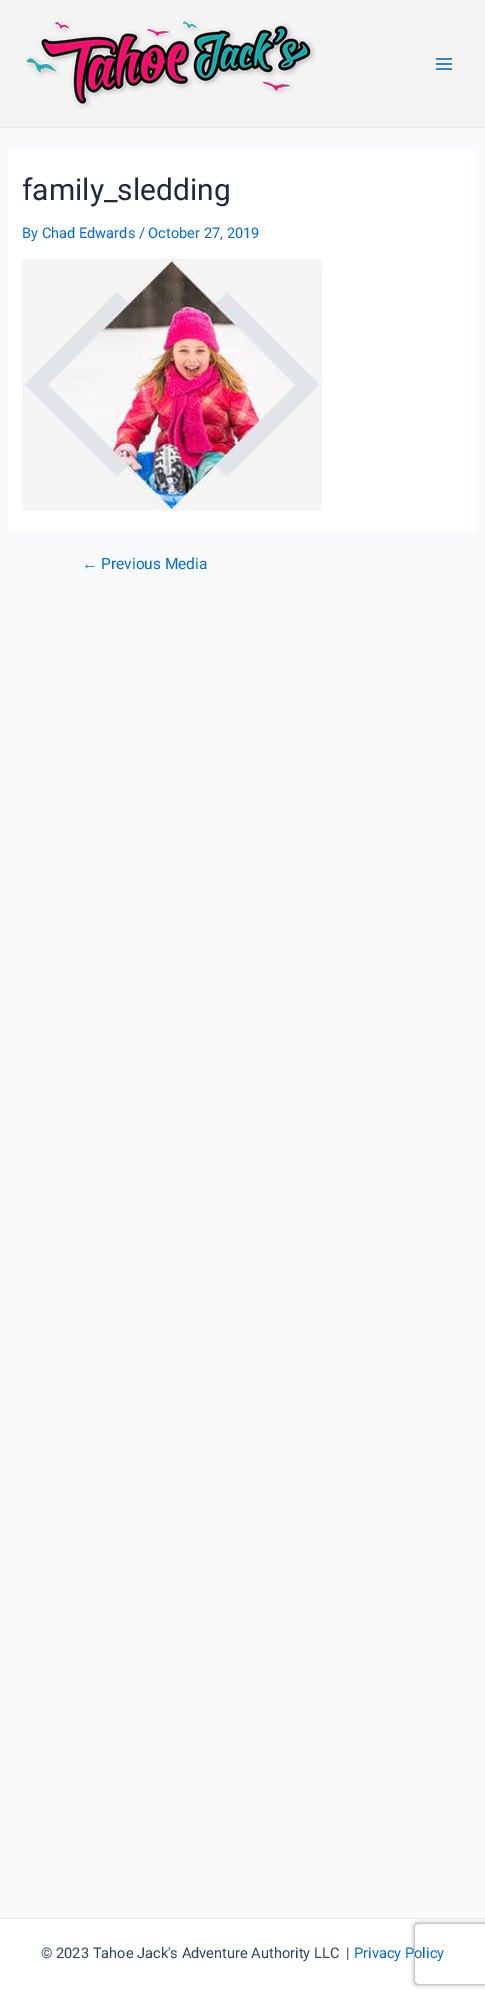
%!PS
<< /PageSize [485 1998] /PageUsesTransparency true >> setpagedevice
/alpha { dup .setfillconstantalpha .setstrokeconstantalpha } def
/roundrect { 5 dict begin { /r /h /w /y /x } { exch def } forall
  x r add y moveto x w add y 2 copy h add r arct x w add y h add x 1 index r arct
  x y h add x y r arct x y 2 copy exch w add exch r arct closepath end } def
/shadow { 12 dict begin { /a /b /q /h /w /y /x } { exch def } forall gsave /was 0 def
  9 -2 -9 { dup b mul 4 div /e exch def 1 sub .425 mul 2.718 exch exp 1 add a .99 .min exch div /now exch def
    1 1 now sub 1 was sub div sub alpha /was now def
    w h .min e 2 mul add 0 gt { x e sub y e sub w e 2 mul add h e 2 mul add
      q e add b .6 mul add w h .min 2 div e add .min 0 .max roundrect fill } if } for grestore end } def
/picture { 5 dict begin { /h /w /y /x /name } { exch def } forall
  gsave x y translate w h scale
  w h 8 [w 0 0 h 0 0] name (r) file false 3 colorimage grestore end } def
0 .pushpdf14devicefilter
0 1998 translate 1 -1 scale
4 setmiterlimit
0.976 0.98 0.984 setrgbcolor
0 0 485 1998 rectfill
0.957 setgray
0 0 485 127 rectfill
0.918 setgray
0 127 485 1 rectfill
(img1.rgb) 25 20 291 89 picture
(img2.rgb) 435 58 18 12 picture
1 setgray
8 150 469 382 rectfill
/Roboto-Regular [30 0 0 -30 0 0] selectfont
0.118 0.161 0.231 setrgbcolor
22 200 moveto (family_sledding) show
/Roboto-Regular [14.6 0 0 -14.6 0 0] selectfont
0.016 0.42 0.824 setrgbcolor
22 238 moveto (By Chad Edwards / October 27, 2019) show
(img3.rgb) 22 259 300 251 picture
/LiberationSans-Regular [15.5 0 0 -15.5 0 0] selectfont
82 569 moveto (←) show
/Roboto-Regular [15.5 0 0 -15.5 0 0] selectfont
101 569 moveto (Previous Media) show
1 setgray
0 1919 485 79 rectfill
0.886 0.91 0.941 setrgbcolor
0 1918 485 1 rectfill
/Roboto-Regular [14.6 0 0 -14.6 0 0] selectfont
0.2 0.255 0.333 setrgbcolor
41 1958 moveto (© 2023 Tahoe Jack's Adventure Authority LLC) show
346 1958 moveto (|) show
0.016 0.42 0.824 setrgbcolor
354 1958 moveto (Privacy Policy) show
gsave
newpath 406 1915 moveto 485 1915 lineto 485 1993 lineto 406 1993 lineto closepath 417 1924 moveto 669 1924 lineto 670 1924 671 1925 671 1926 curveto 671 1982 lineto 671 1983 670 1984 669 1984 curveto 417 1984 lineto 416 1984 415 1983 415 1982 curveto 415 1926 lineto 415 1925 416 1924 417 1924 curveto closepath eoclip newpath
0.502 setgray
415 1924 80 60 2 2.5 1 shadow
grestore
.poppdf14devicefilter showpage
